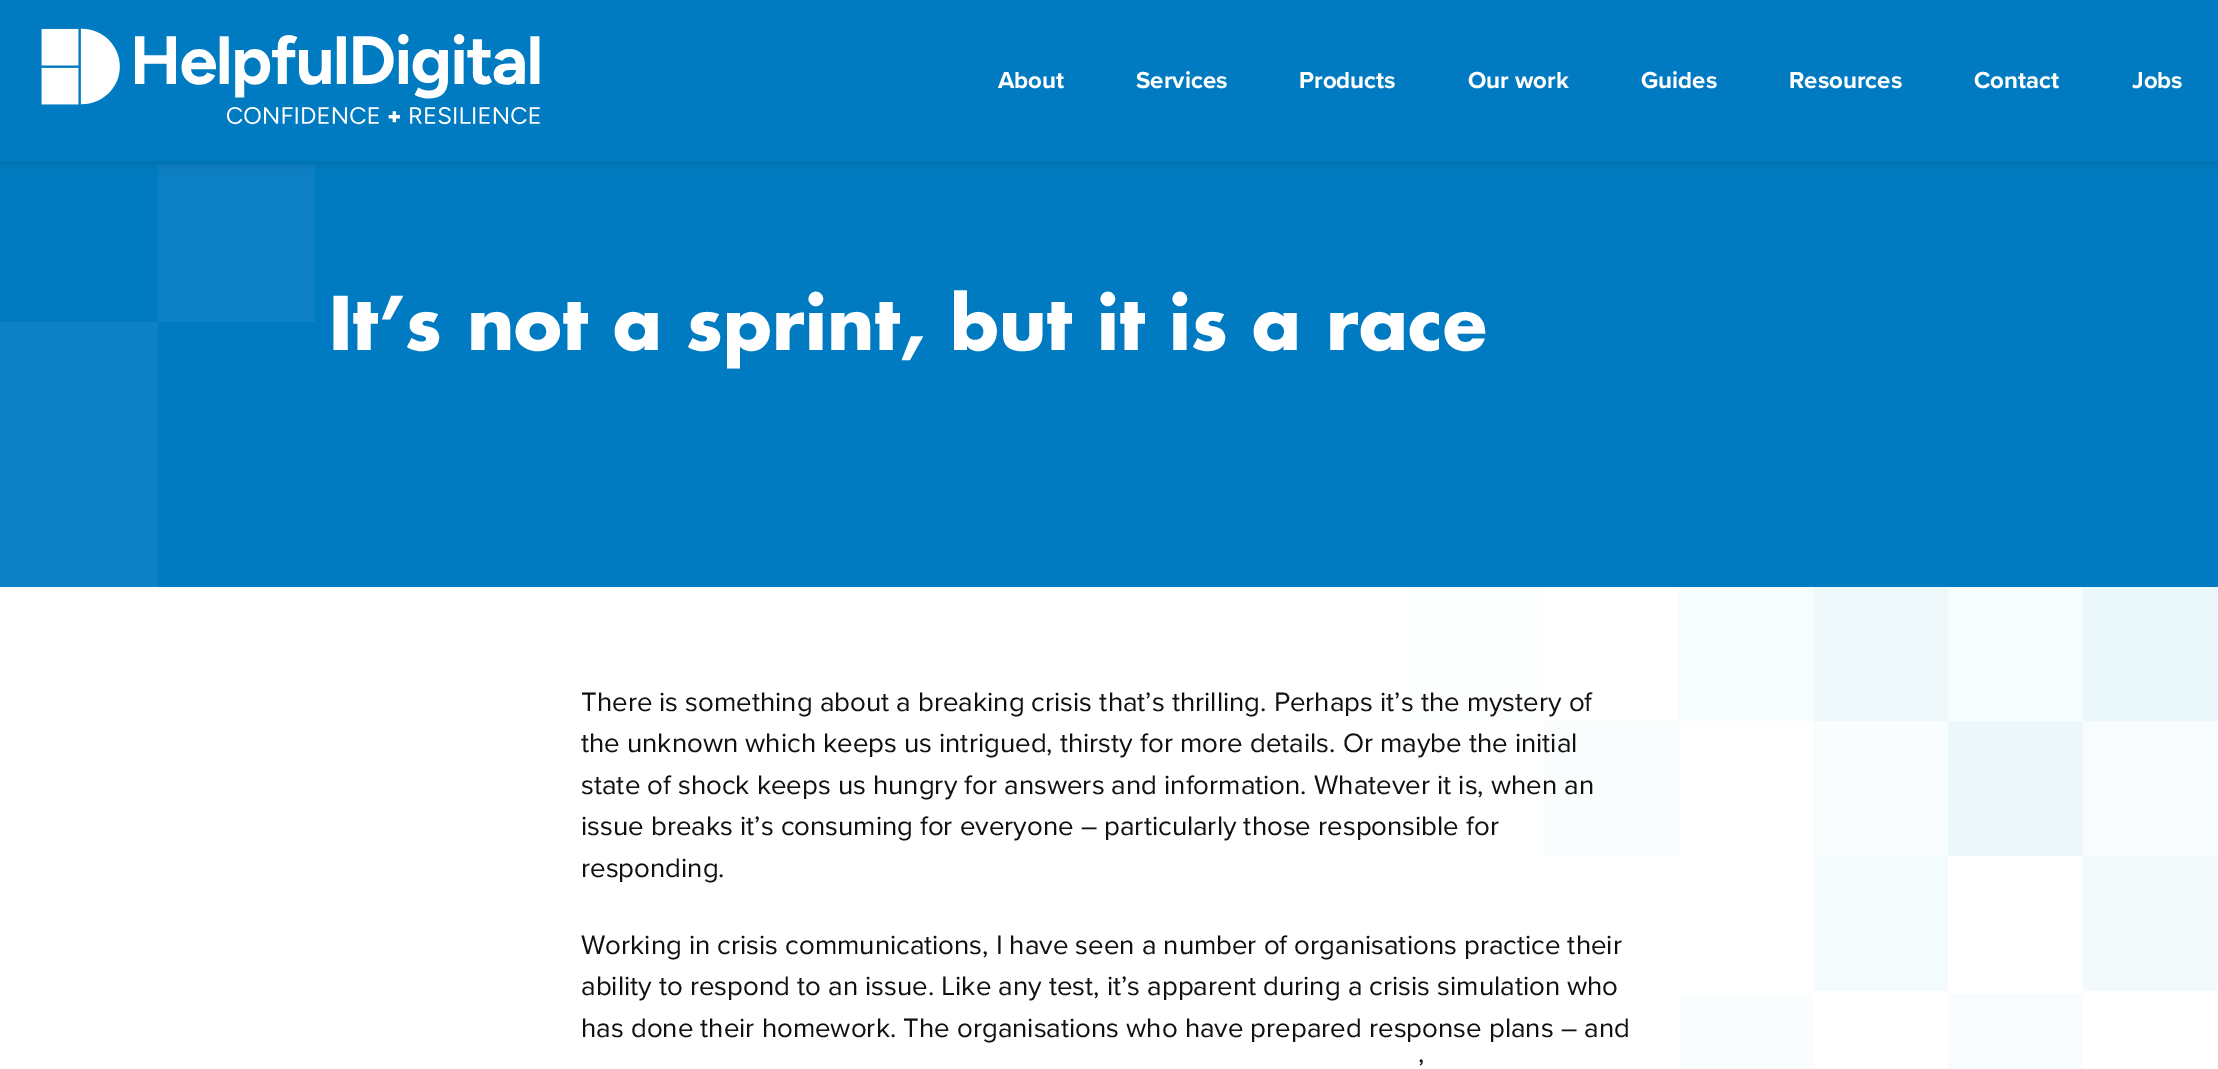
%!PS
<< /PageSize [2218 1069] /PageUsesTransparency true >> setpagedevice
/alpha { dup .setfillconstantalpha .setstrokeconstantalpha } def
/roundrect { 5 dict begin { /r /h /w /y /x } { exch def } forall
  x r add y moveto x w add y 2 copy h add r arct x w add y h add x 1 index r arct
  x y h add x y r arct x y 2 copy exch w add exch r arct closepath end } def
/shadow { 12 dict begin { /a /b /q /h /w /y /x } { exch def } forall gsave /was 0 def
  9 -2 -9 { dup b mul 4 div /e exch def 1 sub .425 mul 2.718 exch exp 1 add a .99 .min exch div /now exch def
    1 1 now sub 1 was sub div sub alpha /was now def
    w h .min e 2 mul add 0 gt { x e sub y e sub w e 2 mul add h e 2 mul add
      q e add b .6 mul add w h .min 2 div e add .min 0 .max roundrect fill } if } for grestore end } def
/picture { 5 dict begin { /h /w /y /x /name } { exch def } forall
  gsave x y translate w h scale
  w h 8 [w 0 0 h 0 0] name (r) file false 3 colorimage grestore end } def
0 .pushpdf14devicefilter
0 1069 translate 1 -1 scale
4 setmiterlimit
0 0.482 0.761 setrgbcolor
0 0 2218 1069 rectfill
0.047 0.506 0.773 setrgbcolor
158 165 157 157 rectfill
0 setgray
-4 -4 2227 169 0 6 0.1 shadow
0 0.482 0.761 setrgbcolor
0 0 2218 161 rectfill
(img1.rgb) 41 28 499 97 picture
/ProximaNova-Bold [24 0 0 -24 0 0] selectfont
1 setgray
998 88 moveto (About) show
1136 88 moveto (Services) show
1299 88 moveto (Products) show
1468 88 moveto (Our work) show
1641 88 moveto (Guides) show
1789 88 moveto (Resources) show
1974 88 moveto (Contact) show
2132 88 moveto (Jobs) show
0.047 0.506 0.773 setrgbcolor
0 322 158 265 rectfill
/Futura-Bold [72 0 0 -72 0 0] selectfont
1 setgray
329 350 moveto (It’s not a sprint, but it is a race) show
0 587 2218 482 rectfill
0.922 0.973 0.984 setrgbcolor
2083 587 135 134 rectfill
0.973 0.988 0.996 setrgbcolor
2083 721 135 135 rectfill
0.969 0.988 0.992 setrgbcolor
1948 587 135 134 rectfill
0.929 0.973 0.988 setrgbcolor
1948 721 135 135 rectfill
0.949 0.98 0.988 setrgbcolor
2083 856 135 135 rectfill
0.937 0.976 0.988 setrgbcolor
1814 587 134 134 rectfill
0.957 0.984 0.992 setrgbcolor
1814 856 134 135 rectfill
0.973 0.988 0.996 setrgbcolor
1948 994 135 75 rectfill
0.976 0.992 0.996 setrgbcolor
1544 721 135 135 rectfill
0.988 0.996 0.996 setrgbcolor
1409 587 135 134 rectfill
0.976 0.992 0.996 setrgbcolor
1679 994 135 75 rectfill
0.969 0.988 0.996 setrgbcolor
1679 587 135 134 rectfill
0.976 0.992 0.996 setrgbcolor
1814 721 134 135 rectfill
/ProximaNova-Regular [27.6 0 0 -27.6 0 0] selectfont
0.067 setgray
581 711 moveto (There is something about a breaking crisis that’s thrilling. Perhaps it’s the mystery of) show
581 752 moveto (the unknown which keeps us intrigued, thirsty for more details. Or maybe the initial) show
581 794 moveto (state of shock keeps us hungry for answers and information. Whatever it is, when an) show
581 835 moveto (issue breaks it’s consuming for everyone – particularly those responsible for) show
581 877 moveto (responding.) show
581 954 moveto (Working in crisis communications, I have seen a number of organisations practice their) show
581 995 moveto (ability to respond to an issue. Like any test, it’s apparent during a crisis simulation who) show
581 1037 moveto (has done their homework. The organisations who have prepared response plans – and) show
1418 1078 moveto (’) show
.poppdf14devicefilter showpage
